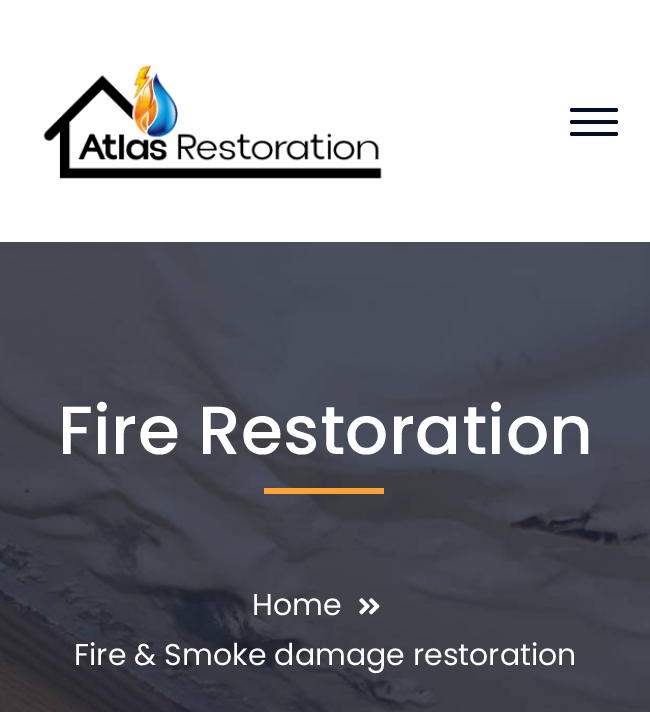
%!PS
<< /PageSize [650 712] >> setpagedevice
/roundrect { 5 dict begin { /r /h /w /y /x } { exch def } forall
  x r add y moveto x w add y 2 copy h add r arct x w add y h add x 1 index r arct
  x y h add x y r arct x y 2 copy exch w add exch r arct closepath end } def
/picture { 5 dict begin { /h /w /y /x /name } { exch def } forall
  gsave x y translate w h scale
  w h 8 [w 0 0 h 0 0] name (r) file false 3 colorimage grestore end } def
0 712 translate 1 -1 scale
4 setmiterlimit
1 setgray
0 0 650 712 rectfill
(img1.rgb) 43 65 339 114 picture
0.012 0.059 0.153 setrgbcolor
570 108 48 4 2 roundrect fill
570 120 48 4 2 roundrect fill
570 132 48 4 2 roundrect fill
(img2.rgb) 0 242 650 470 picture
/Poppins-Medium [68 0 0 -68 0 0] selectfont
1 setgray
58 454 moveto 0.25 0 (Fire Restoration) ashow
1 0.635 0.22 setrgbcolor
264 488 120 6 rectfill
/Poppins-Regular [30 0 0 -30 0 0] selectfont
1 setgray
252 615 moveto (Home) show
(img3.rgb) 359 598 21 17 picture
74 665 moveto (Fire & Smoke damage restoration) show
showpage
